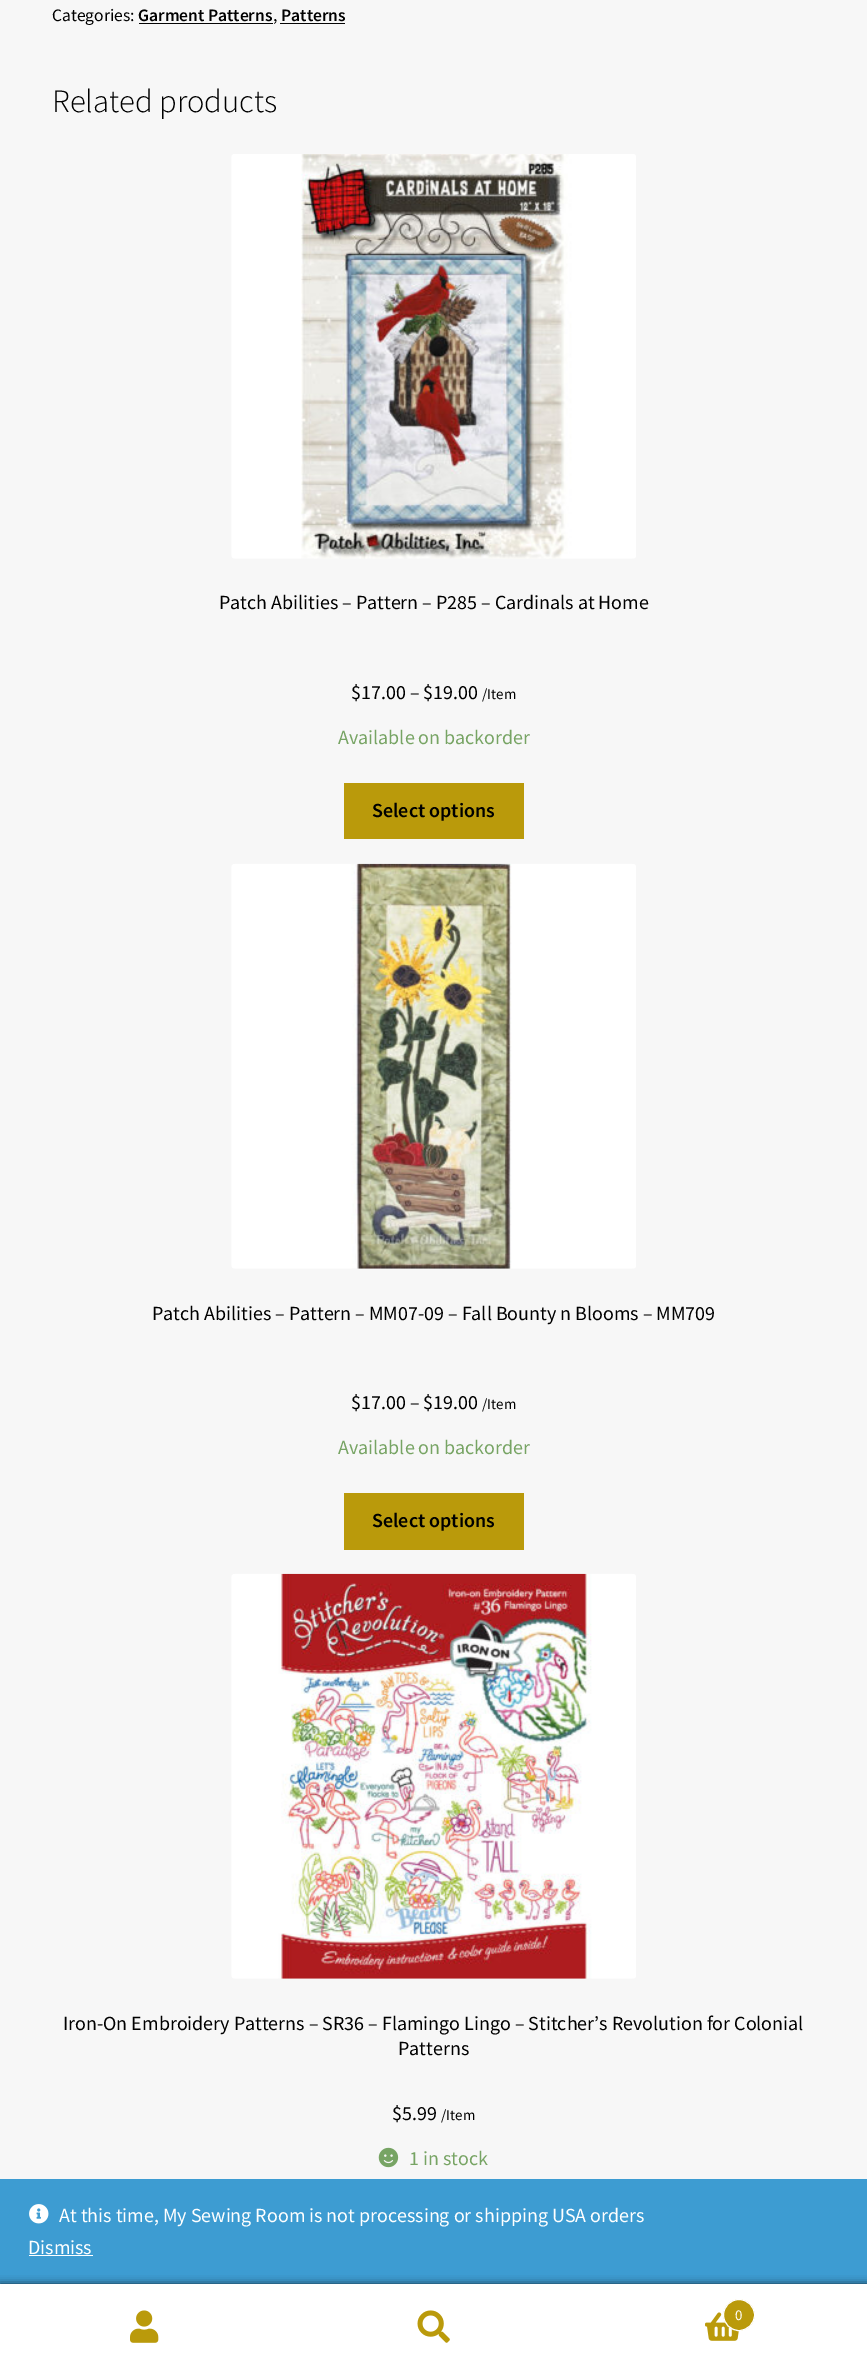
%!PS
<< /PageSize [867 2370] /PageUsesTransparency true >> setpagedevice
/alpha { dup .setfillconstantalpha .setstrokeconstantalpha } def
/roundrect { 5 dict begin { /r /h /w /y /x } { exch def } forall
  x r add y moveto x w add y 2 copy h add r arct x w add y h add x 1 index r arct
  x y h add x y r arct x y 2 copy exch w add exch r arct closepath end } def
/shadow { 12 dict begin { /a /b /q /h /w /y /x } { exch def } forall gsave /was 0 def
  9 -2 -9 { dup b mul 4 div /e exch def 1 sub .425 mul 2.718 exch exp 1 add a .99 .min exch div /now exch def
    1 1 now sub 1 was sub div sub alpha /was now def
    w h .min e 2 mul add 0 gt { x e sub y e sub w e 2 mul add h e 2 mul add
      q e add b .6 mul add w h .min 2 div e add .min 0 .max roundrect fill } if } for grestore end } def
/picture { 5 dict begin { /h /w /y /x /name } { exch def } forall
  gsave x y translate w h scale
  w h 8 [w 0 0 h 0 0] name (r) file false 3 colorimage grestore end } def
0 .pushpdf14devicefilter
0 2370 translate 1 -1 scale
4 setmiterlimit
0.969 setgray
0 0 867 2370 rectfill
/SourceSansPro-Regular [17.5 0 0 -17.5 0 0] selectfont
0 setgray
52 21 moveto (Categories:) show
/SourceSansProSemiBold-SemiBold [17.5 0 0 -17.5 0 0] selectfont
138 21 moveto (Garment Patterns) show
0.02 setgray
139 23 134 1 rectfill
/SourceSansPro-Regular [17.5 0 0 -17.5 0 0] selectfont
0 setgray
273 21 moveto (,) show
/SourceSansProSemiBold-SemiBold [17.5 0 0 -17.5 0 0] selectfont
281 21 moveto (Patterns) show
0.02 setgray
280 23 65 1 rectfill
/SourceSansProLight-Light [32.5 0 0 -32.5 0 0] selectfont
0 setgray
52 112 moveto (Related products) show
(img1.rgb) 231 154 405 405 picture
/SourceSansPro-Regular [20 0 0 -20 0 0] selectfont
219 609 moveto (Patch Abilities – Pattern – P285 – Cardinals at Home) show
351 699 moveto ($17.00 – $19.00) show
/SourceSansPro-Regular [15 0 0 -15 0 0] selectfont
482 699 moveto (/Item) show
/SourceSansPro-Regular [20 0 0 -20 0 0] selectfont
0.467 0.643 0.392 setrgbcolor
338 744 moveto (Available on backorder) show
0.729 0.604 0.043 setrgbcolor
344 783 180 56 rectfill
/SourceSansProSemiBold-SemiBold [20 0 0 -20 0 0] selectfont
0 setgray
372 817 moveto (Select options) show
(img2.rgb) 231 863 405 406 picture
/SourceSansPro-Regular [20 0 0 -20 0 0] selectfont
152 1320 moveto (Patch Abilities – Pattern – MM07-09 – Fall Bounty n Blooms – MM709) show
351 1409 moveto ($17.00 – $19.00) show
/SourceSansPro-Regular [15 0 0 -15 0 0] selectfont
482 1409 moveto (/Item) show
/SourceSansPro-Regular [20 0 0 -20 0 0] selectfont
0.467 0.643 0.392 setrgbcolor
338 1454 moveto (Available on backorder) show
0.729 0.604 0.043 setrgbcolor
344 1493 180 57 rectfill
/SourceSansProSemiBold-SemiBold [20 0 0 -20 0 0] selectfont
0 setgray
372 1527 moveto (Select options) show
(img3.rgb) 231 1573 405 406 picture
/SourceSansPro-Regular [20 0 0 -20 0 0] selectfont
63 2030 moveto (Iron-On Embroidery Patterns – SR36 – Flamingo Lingo – Stitcher’s Revolution for Colonial) show
398 2055 moveto (Patterns) show
392 2120 moveto ($5.99) show
/SourceSansPro-Regular [15 0 0 -15 0 0] selectfont
441 2120 moveto (/Item) show
(img4.rgb) 378 2147 21 21 picture
/SourceSansPro-Regular [20 0 0 -20 0 0] selectfont
0.467 0.643 0.392 setrgbcolor
409 2165 moveto (1 in stock) show
0.239 0.612 0.824 setrgbcolor
0 2179 867 105 rectfill
0 setgray
0 2284 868 86 0 4 0.7 shadow
1 setgray
0 2284 867 1 rectfill
0 2285 867 85 rectfill
(img5.rgb) 130 2310 29 33 picture
(img6.rgb) 417 2310 33 33 picture
(img7.rgb) 705 2312 34 29 picture
0.729 0.604 0.043 setrgbcolor
newpath 739 2315 15.5 0 360 arc closepath gsave fill grestore
1 setgray
stroke
/SourceSansPro-Regular [15 0 0 -15 0 0] selectfont
735 2320 moveto (0) show
(img8.rgb) 29 2204 20 20 picture
/SourceSansPro-Regular [20 0 0 -20 0 0] selectfont
59 2222 moveto (At this time, My Sewing Room is not processing or shipping USA orders) show
28 2254 moveto (Dismiss) show
29 2255 64 1 rectfill
.poppdf14devicefilter showpage
